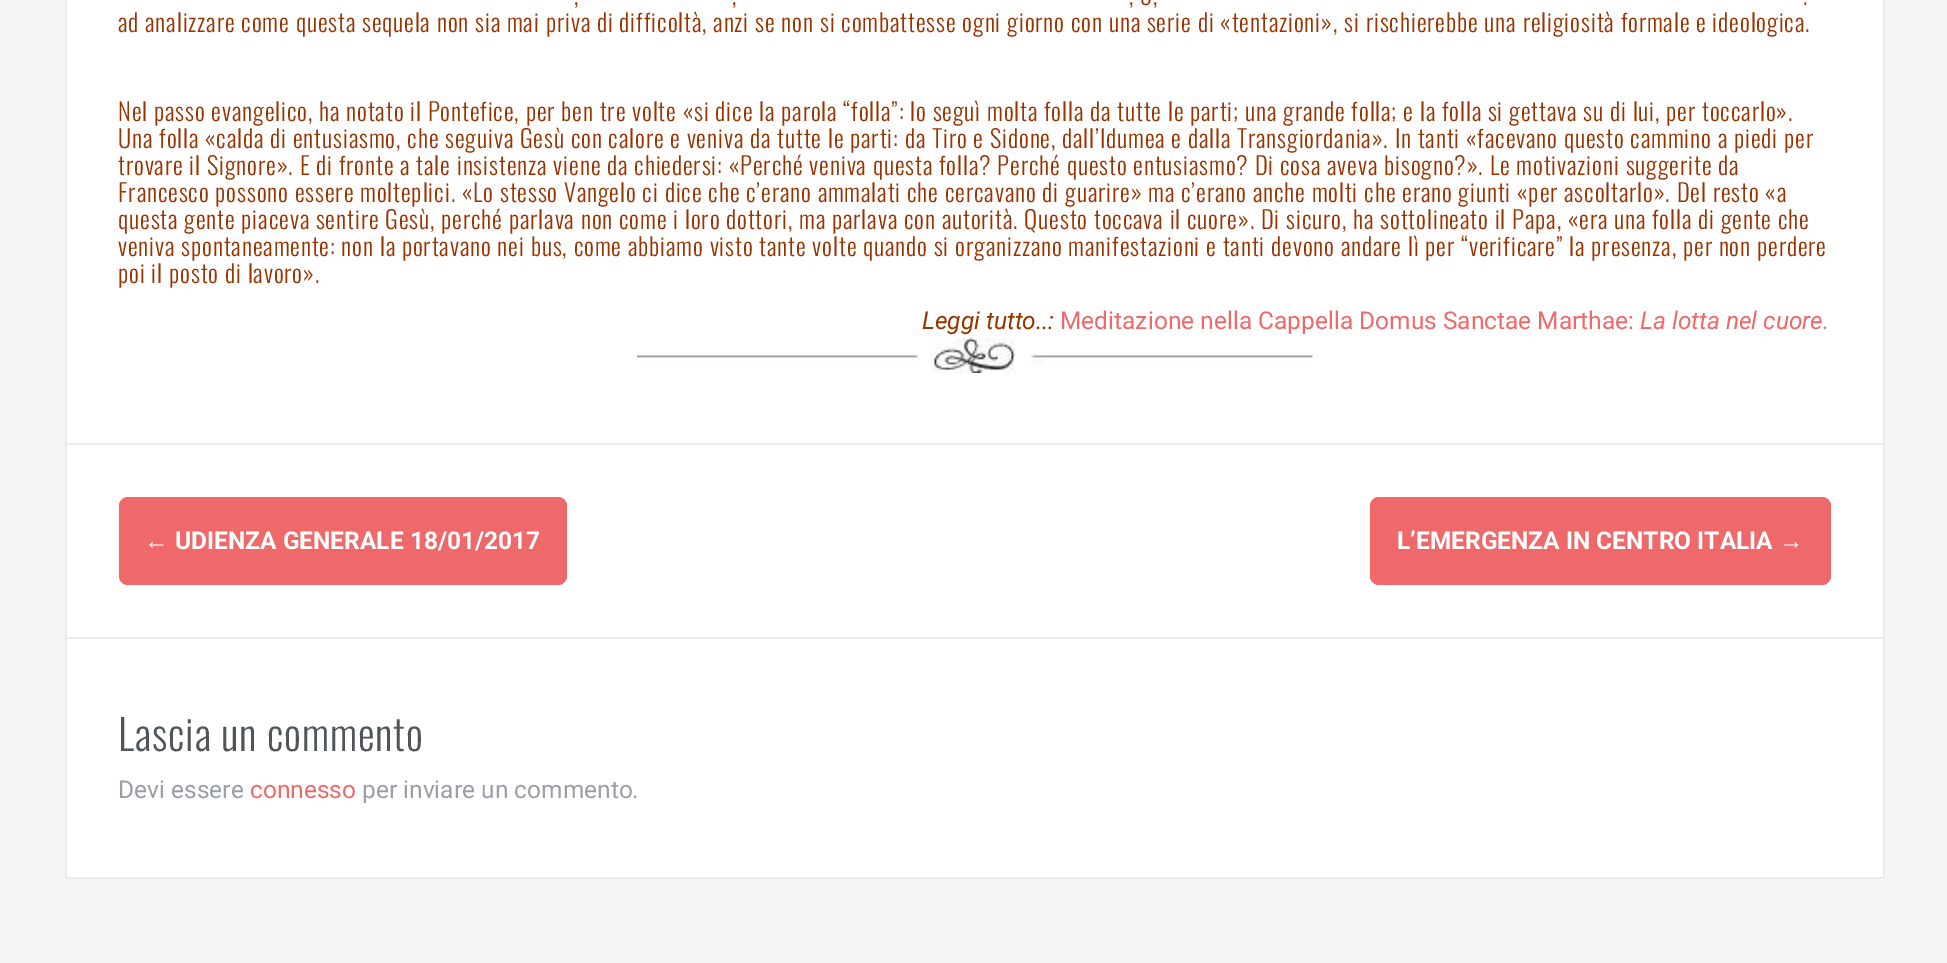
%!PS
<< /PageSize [1947 963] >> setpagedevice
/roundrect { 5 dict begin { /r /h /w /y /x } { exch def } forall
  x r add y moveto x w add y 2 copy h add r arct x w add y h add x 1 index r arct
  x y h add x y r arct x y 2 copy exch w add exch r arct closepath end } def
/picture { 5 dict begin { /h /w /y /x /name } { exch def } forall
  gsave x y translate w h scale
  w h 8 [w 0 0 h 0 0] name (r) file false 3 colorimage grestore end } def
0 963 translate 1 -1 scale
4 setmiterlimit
0.961 setgray
0 0 1947 963 rectfill
1 setgray
67 0 1816 443 rectfill
0.922 setgray
1883 0 2 445 rectfill
65 443 1820 2 rectfill
65 0 2 445 rectfill
/Oswald-Light [24.5 0 0 -24.5 0 0] selectfont
0.6 0.2 0 setrgbcolor
574 5 moveto 0.88 0 (,) ashow
732 5 moveto 0.88 0 (,) ashow
1129 5 moveto 0.88 0 (, 3,) ashow
1803 5 moveto 0.88 0 (.) ashow
118 32 moveto 0.88 0 (ad analizzare come questa sequela non sia mai priva di difficoltà, anzi se non si combattesse ogni giorno con una serie di «tentazioni», si rischierebbe una religiosità formale e ideologica.) ashow
118 121 moveto 0.88 0 (Nel passo evangelico, ha notato il Pontefice, per ben tre volte «si dice la parola “folla”: lo seguì molta folla da tutte le parti; una grande folla; e la folla si gettava su di lui, per toccarlo».) ashow
118 148 moveto 0.88 0 (Una folla «calda di entusiasmo, che seguiva Gesù con calore e veniva da tutte le parti: da Tiro e Sidone, dall’Idumea e dalla Transgiordania». In tanti «facevano questo cammino a piedi per) ashow
118 175 moveto 0.88 0 (trovare il Signore». E di fronte a tale insistenza viene da chiedersi: «Perché veniva questa folla? Perché questo entusiasmo? Di cosa aveva bisogno?». Le motivazioni suggerite da) ashow
118 202 moveto 0.88 0 (Francesco possono essere molteplici. «Lo stesso Vangelo ci dice che c’erano ammalati che cercavano di guarire» ma c’erano anche molti che erano giunti «per ascoltarlo». Del resto «a) ashow
118 229 moveto 0.88 0 (questa gente piaceva sentire Gesù, perché parlava non come i loro dottori, ma parlava con autorità. Questo toccava il cuore». Di sicuro, ha sottolineato il Papa, «era una folla di gente che) ashow
118 256 moveto 0.88 0 (veniva spontaneamente: non la portavano nei bus, come abbiamo visto tante volte quando si organizzano manifestazioni e tanti devono andare lì per “verificare” la presenza, per non perdere) ashow
118 283 moveto 0.88 0 (poi il posto di lavoro».) ashow
/Roboto-Italic [24.5 0 0 -24.5 0 0] selectfont
922 329 moveto (Leggi tutto..:) show
/Roboto-Regular [24.5 0 0 -24.5 0 0] selectfont
0.941 0.412 0.416 setrgbcolor
1060 329 moveto (Meditazione nella Cappella Domus Sanctae Marthae:) show
/Roboto-Italic [24.5 0 0 -24.5 0 0] selectfont
1640 329 moveto (La lotta nel cuore) show
0.596 0.624 0.659 setrgbcolor
1823 329 moveto (.) show
(img1.rgb) 637 338 676 35 picture
1 setgray
67 445 1816 192 rectfill
0.922 setgray
1883 445 2 434 rectfill
65 637 1820 2 rectfill
65 445 2 194 rectfill
0.941 0.412 0.416 setrgbcolor
119 497 448 88 9 roundrect fill
/LiberationSans-Bold [24.5 0 0 -24.5 0 0] selectfont
1 setgray
144 549 moveto (←) show
/Roboto-Bold [24.5 0 0 -24.5 0 0] selectfont
175 549 moveto (UDIENZA GENERALE 18/01/2017) show
0.941 0.412 0.416 setrgbcolor
1370 497 461 88 9 roundrect fill
1 setgray
1397 549 moveto (L’EMERGENZA IN CENTRO ITALIA) show
/LiberationSans-Bold [24.5 0 0 -24.5 0 0] selectfont
1779 549 moveto (→) show
67 639 1816 238 rectfill
0.922 setgray
65 877 1820 2 rectfill
65 639 2 240 rectfill
/Oswald-Light [42 0 0 -42 0 0] selectfont
0.314 0.333 0.349 setrgbcolor
118 751 moveto 0.88 0 (Lascia un commento) ashow
/Roboto-Regular [24.5 0 0 -24.5 0 0] selectfont
0.596 0.624 0.659 setrgbcolor
118 798 moveto (Devi essere) show
0.941 0.412 0.416 setrgbcolor
250 798 moveto (connesso) show
0.596 0.624 0.659 setrgbcolor
362 798 moveto (per inviare un commento.) show
showpage
